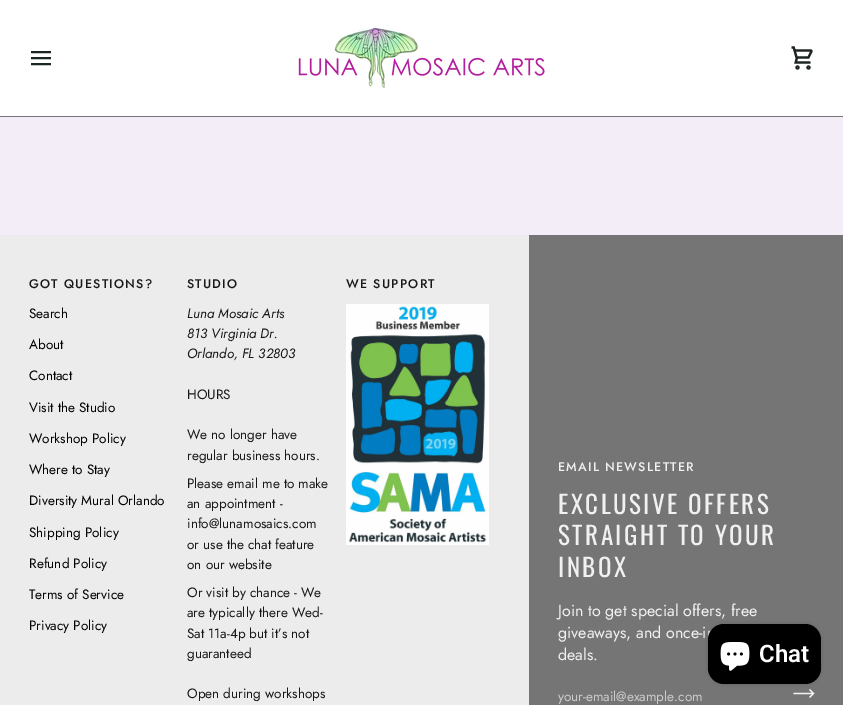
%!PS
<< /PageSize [843 705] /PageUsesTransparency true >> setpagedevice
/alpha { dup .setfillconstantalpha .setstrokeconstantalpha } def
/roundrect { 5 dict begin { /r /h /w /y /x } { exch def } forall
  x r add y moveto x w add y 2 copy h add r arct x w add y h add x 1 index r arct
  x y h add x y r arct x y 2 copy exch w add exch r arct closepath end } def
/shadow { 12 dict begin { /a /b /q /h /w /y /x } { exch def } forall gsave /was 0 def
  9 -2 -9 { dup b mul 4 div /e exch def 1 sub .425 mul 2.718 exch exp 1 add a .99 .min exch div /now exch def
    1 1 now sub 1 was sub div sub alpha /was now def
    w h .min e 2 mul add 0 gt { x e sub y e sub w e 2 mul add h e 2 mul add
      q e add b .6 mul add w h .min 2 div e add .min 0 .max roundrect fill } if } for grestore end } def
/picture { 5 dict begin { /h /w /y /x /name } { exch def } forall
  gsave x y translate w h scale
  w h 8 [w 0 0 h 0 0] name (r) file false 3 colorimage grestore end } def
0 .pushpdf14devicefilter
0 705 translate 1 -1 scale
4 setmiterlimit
0.949 0.929 0.969 setrgbcolor
0 0 843 705 rectfill
0.459 setgray
0 116 843 1 rectfill
1 setgray
0 0 843 116 rectfill
0.114 0.145 0.137 setrgbcolor
2 setlinewidth
2 setlinecap
newpath 50 52 moveto 32 52 lineto 50 58 moveto 32 58 lineto 50 64 moveto 32 64 lineto stroke
(img1.rgb) 298 28 247 60 picture
(img2.rgb) 791 46 22 24 picture
0.925 setgray
0 235 529 470 rectfill
/Jost-Medium [12.5 0 0 -12.5 0 0] selectfont
0.094 setgray
29 288 moveto 1.25 0 (GOT QUESTIONS?) ashow
/Jost-Regular [13.5 0 0 -13.5 0 0] selectfont
0 setgray
29 318 moveto (Search) show
29 349 moveto (About) show
29 380 moveto (Contact) show
29 412 moveto (Visit the Studio) show
29 443 moveto (Workshop Policy) show
29 474 moveto (Where to Stay) show
29 505 moveto (Diversity Mural Orlando) show
29 537 moveto (Shipping Policy) show
29 568 moveto (Refund Policy) show
29 599 moveto (Terms of Service) show
29 630 moveto (Privacy Policy) show
/Jost-Medium [12.5 0 0 -12.5 0 0] selectfont
0.094 setgray
187 288 moveto 1.25 0 (STUDIO) ashow
/Jost-Italic [13.5 0 0 -13.5 0 0] selectfont
187 318 moveto (Luna Mosaic Arts) show
187 338 moveto (813 Virginia Dr.) show
187 358 moveto (Orlando, FL 32803) show
/Jost-Regular [13.5 0 0 -13.5 0 0] selectfont
187 399 moveto (HOURS) show
187 439 moveto (We no longer have) show
187 460 moveto (regular business hours.) show
187 488 moveto (Please email me to make) show
187 508 moveto (an appointment -) show
187 528 moveto (info@lunamosaics.com) show
187 549 moveto (or use the chat feature) show
187 569 moveto (on our website) show
187 597 moveto (Or visit by chance - We) show
187 617 moveto (are typically there Wed-) show
187 638 moveto (Sat 11a-4p but it’s not) show
187 658 moveto (guaranteed) show
187 698 moveto (Open during workshops) show
/Jost-Medium [12.5 0 0 -12.5 0 0] selectfont
346 288 moveto 1.25 0 (WE SUPPORT) ashow
(img3.rgb) 346 304 143 241 picture
0.459 setgray
529 235 314 470 rectfill
0.945 setgray
558 471 moveto 1.25 0 (EMAIL NEWSLETTER) ashow
/Oswald-Regular [25 0 0 -25 0 0] selectfont
558 514 moveto 2.5 0 (EXCLUSIVE OFFERS) ashow
558 545 moveto 2.5 0 (STRAIGHT TO YOUR) ashow
558 577 moveto 2.5 0 (INBOX) ashow
/Jost-Regular [16 0 0 -16 0 0] selectfont
558 616 moveto (Join to get special offers, free) show
558 638 moveto (giveaways, and once-in) show
558 660 moveto (deals.) show
/Jost-Regular [13.5 0 0 -13.5 0 0] selectfont
0.8 setgray
558 701 moveto (your-email@example.com) show
0.945 setgray
1.3 setlinewidth
0 setlinecap
newpath 809.5 689.5 moveto 813.5 693.5 lineto 809.5 697.5 lineto 793.5 693.5 moveto 813.5 693.5 lineto stroke
0 setgray
708 624 113 60 16 2.5 0.15 shadow
708 624 113 60 16 roundrect fill
(img4.rgb) 720 642 30 29 picture
/Roboto-SemiBold [24 0 0 -24 0 0] selectfont
1 setgray
759 662 moveto (Chat) show
.poppdf14devicefilter showpage
